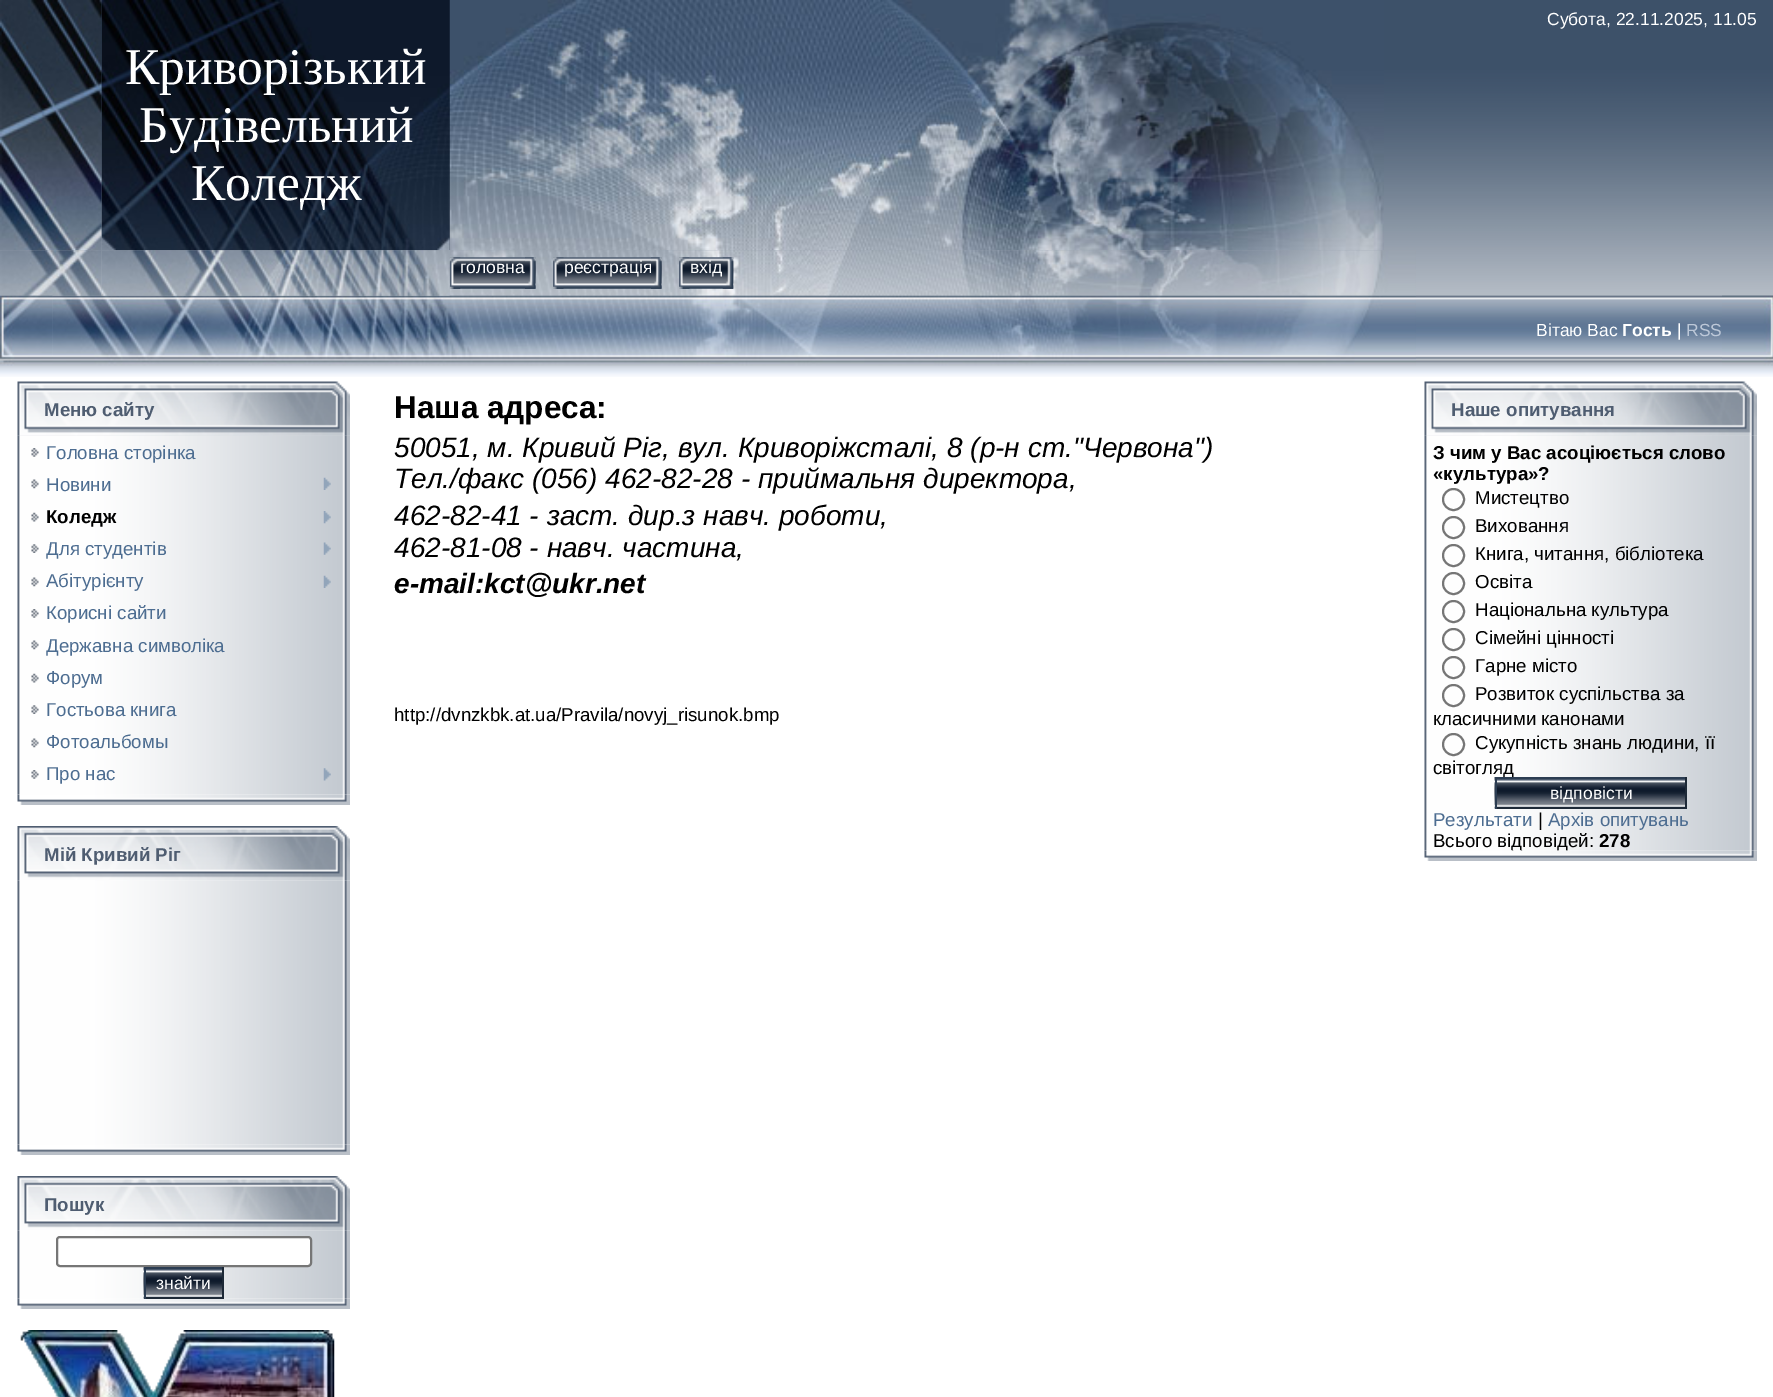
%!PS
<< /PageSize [1773 1397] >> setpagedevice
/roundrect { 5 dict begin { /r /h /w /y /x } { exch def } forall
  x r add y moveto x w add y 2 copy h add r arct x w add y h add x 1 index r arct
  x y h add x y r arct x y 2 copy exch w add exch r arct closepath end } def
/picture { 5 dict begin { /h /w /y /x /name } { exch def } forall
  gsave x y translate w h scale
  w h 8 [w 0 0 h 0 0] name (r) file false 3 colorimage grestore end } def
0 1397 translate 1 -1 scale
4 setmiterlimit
1 setgray
0 0 1773 1397 rectfill
(img1.rgb) 0 0 1773 377 picture
(img4.rgb) 101 0 349 251 picture
(img2.rgb) 0 0 102 251 picture
(img3.rgb) 449 0 935 251 picture
/LiberationSans-Regular [17.5 0 0 -17.5 0 0] selectfont
1547 25 moveto (Субота, 22.11.2025, 11.05) show
/LiberationSerif-Regular [51.5 0 0 -51.5 0 0] selectfont
125 84 moveto (Криворiзький) show
139 142 moveto (Будiвельний) show
191 200 moveto (Коледж) show
(img7.rgb) 449 250 967 46 picture
(img18.rgb) 52 295 1364 71 picture
(img5.rgb) 0 250 102 46 picture
(img8.rgb) 449 257 87 32 picture
(img9.rgb) 449 257 12 32 picture
(img6.rgb) 101 250 349 46 picture
/LiberationSans-Regular [17.5 0 0 -17.5 0 0] selectfont
460 273 moveto (головна) show
(img10.rgb) 525 257 11 32 picture
(img11.rgb) 553 257 109 32 picture
(img12.rgb) 553 257 11 32 picture
564 273 moveto (реєстрація) show
(img13.rgb) 651 257 11 32 picture
(img14.rgb) 679 257 55 32 picture
(img15.rgb) 679 257 11 32 picture
690 273 moveto (вхід) show
(img16.rgb) 722 257 12 32 picture
(img17.rgb) 0 295 53 71 picture
1536 336 moveto (Вітаю Вас) show
/LiberationSans-Bold [17.5 0 0 -17.5 0 0] selectfont
1622 336 moveto (Гость) show
/LiberationSans-Regular [17.5 0 0 -17.5 0 0] selectfont
1677 336 moveto (|) show
0.741 0.784 0.847 setrgbcolor
1686 336 moveto (RSS) show
(img19.rgb) 1722 295 51 71 picture
(img20.rgb) 17 381 333 55 picture
/LiberationSans-Bold [18.7 0 0 -18.7 0 0] selectfont
0.31 0.365 0.443 setrgbcolor
44 416 moveto (Меню сайту) show
(img21.rgb) 17 435 333 360 picture
(img22.rgb) 31 448 8 9 picture
/LiberationSans-Regular [18.7 0 0 -18.7 0 0] selectfont
0.302 0.427 0.569 setrgbcolor
46 459 moveto (Головна сторiнка) show
(img23.rgb) 31 479 8 10 picture
46 491 moveto (Новини) show
(img24.rgb) 323 477 8 13 picture
(img25.rgb) 31 512 8 10 picture
/LiberationSans-Bold [18.7 0 0 -18.7 0 0] selectfont
0 setgray
46 523 moveto (Коледж) show
(img26.rgb) 323 511 8 13 picture
(img27.rgb) 31 544 8 9 picture
/LiberationSans-Regular [18.7 0 0 -18.7 0 0] selectfont
0.302 0.427 0.569 setrgbcolor
46 555 moveto (Для студентiв) show
(img28.rgb) 323 542 8 13 picture
(img23.rgb) 31 577 8 10 picture
46 587 moveto (Абітурієнту) show
(img24.rgb) 323 575 8 13 picture
(img22.rgb) 31 609 8 9 picture
46 619 moveto (Корисні сайти) show
(img23.rgb) 31 640 8 10 picture
46 652 moveto (Державна символіка) show
(img25.rgb) 31 673 8 10 picture
46 684 moveto (Форум) show
(img27.rgb) 31 705 8 9 picture
46 716 moveto (Гостьова книга) show
(img23.rgb) 31 738 8 10 picture
46 748 moveto (Фотоальбомы) show
(img22.rgb) 31 770 8 9 picture
46 780 moveto (Про наc) show
(img29.rgb) 323 768 8 13 picture
(img30.rgb) 17 794 333 11 picture
(img31.rgb) 17 826 333 55 picture
/LiberationSans-Bold [18.7 0 0 -18.7 0 0] selectfont
0.31 0.365 0.443 setrgbcolor
44 861 moveto (Мій Кривий Ріг) show
(img32.rgb) 17 880 333 265 picture
(img30.rgb) 17 1144 333 11 picture
(img31.rgb) 17 1176 333 55 picture
44 1211 moveto (Пошук) show
(img33.rgb) 17 1230 333 69 picture
1 setgray
57 1237 254 29 3 roundrect gsave fill grestore
0.463 setgray
2 setlinewidth
stroke
(img30.rgb) 17 1298 333 11 picture
(img34.rgb) 143 1267 79 32 picture
0.173 0.239 0.322 setrgbcolor
144 1267 80 2 rectfill
0.114 0.161 0.216 setrgbcolor
222 1267 2 32 rectfill
144 1297 80 2 rectfill
0.173 0.239 0.322 setrgbcolor
144 1267 2 32 rectfill
/LiberationSans-Regular [17.5 0 0 -17.5 0 0] selectfont
1 setgray
156 1289 moveto (знайти) show
(img35.rgb) 20 1330 315 67 picture
/LiberationSans-Bold [31.5 0 0 -31.5 0 0] selectfont
0 setgray
394 418 moveto (Наша адреса:) show
/LiberationSans-Italic [28 0 0 -28 0 0] selectfont
394 457 moveto (50051, м. Кривий Ріг, вул. Криворіжсталі, 8 \(р-н ст."Червона"\)) show
394 488 moveto (Тел./факс \(056\) 462-82-28 - приймальня директора,) show
394 525 moveto (462-82-41 - заст. дир.з навч. роботи,) show
394 557 moveto (462-81-08 - навч. частина,) show
/LiberationSans-BoldItalic [28 0 0 -28 0 0] selectfont
394 593 moveto (e-mail:kct@ukr.net) show
/LiberationSans-Regular [18.7 0 0 -18.7 0 0] selectfont
394 721 moveto (http://dvnzkbk.at.ua/Pravila/novyj_risunok.bmp) show
(img36.rgb) 1424 381 333 55 picture
/LiberationSans-Bold [18.7 0 0 -18.7 0 0] selectfont
0.31 0.365 0.443 setrgbcolor
1451 416 moveto (Наше опитування) show
(img37.rgb) 1424 435 333 416 picture
0 setgray
1433 459 moveto (З чим у Вас асоціюється слово) show
1433 480 moveto («культура»?) show
0.463 setgray
newpath 1453.5 499.5 10.5 0 360 arc closepath stroke
/LiberationSans-Regular [18.7 0 0 -18.7 0 0] selectfont
0 setgray
1475 504 moveto (Мистецтво) show
0.463 setgray
newpath 1453.5 527.5 10.5 0 360 arc closepath stroke
0 setgray
1475 532 moveto (Виховання) show
0.463 setgray
newpath 1453.5 555.5 10.5 0 360 arc closepath stroke
0 setgray
1475 560 moveto (Книга, читання, бібліотека) show
0.463 setgray
newpath 1453.5 583.5 10.5 0 360 arc closepath stroke
0 setgray
1475 588 moveto (Освіта) show
0.463 setgray
newpath 1453.5 611.5 10.5 0 360 arc closepath stroke
0 setgray
1475 616 moveto (Національна культура) show
0.463 setgray
newpath 1453.5 639.5 10.5 0 360 arc closepath stroke
0 setgray
1475 644 moveto (Сімейні цінності) show
0.463 setgray
newpath 1453.5 667.5 10.5 0 360 arc closepath stroke
0 setgray
1475 672 moveto (Гарне місто) show
0.463 setgray
newpath 1453.5 695.5 10.5 0 360 arc closepath stroke
0 setgray
1475 700 moveto (Розвиток суспільства за) show
1433 725 moveto (класичними канонами) show
0.463 setgray
newpath 1453.5 744.5 10.5 0 360 arc closepath stroke
0 setgray
1475 749 moveto (Сукупність знань людини, її) show
1433 774 moveto (світогляд) show
(img38.rgb) 1494 777 191 32 picture
0.173 0.239 0.322 setrgbcolor
1495 777 192 2 rectfill
0.114 0.161 0.216 setrgbcolor
1685 777 2 32 rectfill
1495 807 192 2 rectfill
0.173 0.239 0.322 setrgbcolor
1495 777 2 32 rectfill
/LiberationSans-Regular [17.5 0 0 -17.5 0 0] selectfont
1 setgray
1550 799 moveto (вiдповiсти) show
/LiberationSans-Regular [18.7 0 0 -18.7 0 0] selectfont
0.302 0.427 0.569 setrgbcolor
1433 826 moveto (Результати) show
0 setgray
1538 826 moveto (|) show
0.302 0.427 0.569 setrgbcolor
1548 826 moveto (Архів опитувань) show
0 setgray
1433 847 moveto (Всього відповідей:) show
/LiberationSans-Bold [18.7 0 0 -18.7 0 0] selectfont
1599 847 moveto (278) show
(img39.rgb) 1424 850 333 11 picture
showpage
